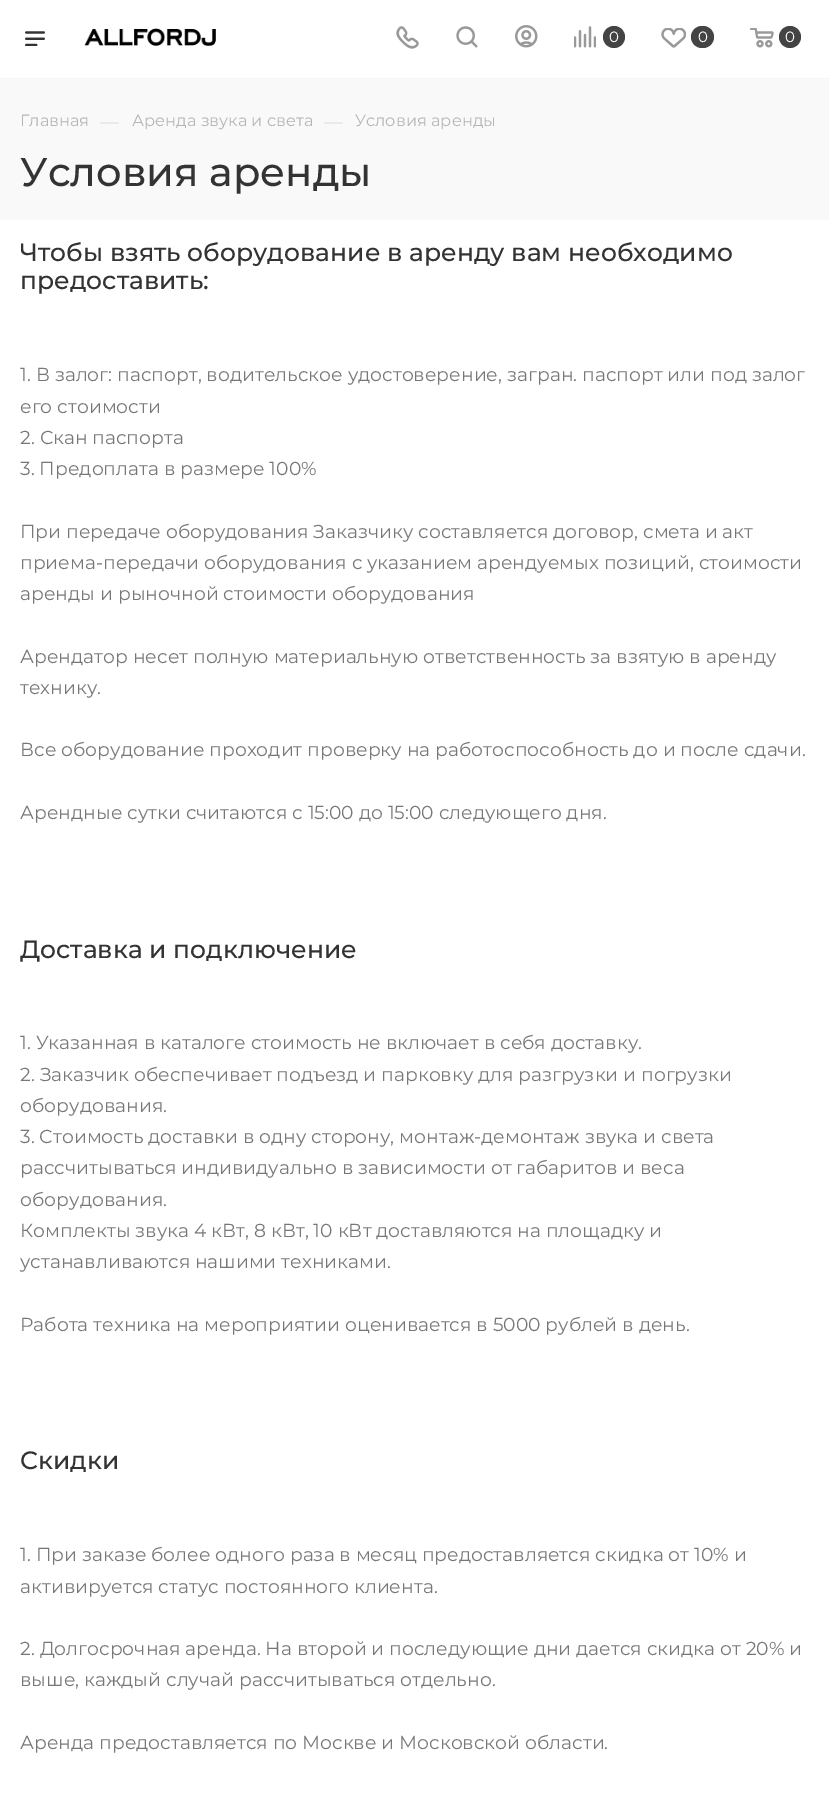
%!PS
<< /PageSize [829 1807] >> setpagedevice
/roundrect { 5 dict begin { /r /h /w /y /x } { exch def } forall
  x r add y moveto x w add y 2 copy h add r arct x w add y h add x 1 index r arct
  x y h add x y r arct x y 2 copy exch w add exch r arct closepath end } def
/picture { 5 dict begin { /h /w /y /x /name } { exch def } forall
  gsave x y translate w h scale
  w h 8 [w 0 0 h 0 0] name (r) file false 3 colorimage grestore end } def
0 1807 translate 1 -1 scale
4 setmiterlimit
1 setgray
0 0 829 1807 rectfill
0.961 setgray
0 78 829 1 rectfill
(img1.rgb) 25 31 20 15 picture
(img2.rgb) 84 28 132 18 picture
(img3.rgb) 396 26 23 23 picture
(img4.rgb) 456 26 22 22 picture
(img5.rgb) 515 25 23 23 picture
(img6.rgb) 574 26 22 22 picture
0.267 setgray
newpath 614 37 11 0 360 arc closepath fill
/Montserrat-Regular [15 0 0 -15 0 0] selectfont
1 setgray
609 42 moveto (0) show
(img7.rgb) 661 28 25 20 picture
0.267 setgray
691 26 23 22 11 roundrect fill
1 setgray
698 42 moveto (0) show
(img8.rgb) 750 28 24 20 picture
0.267 setgray
newpath 790 37 11 0 360 arc closepath fill
1 setgray
785 42 moveto (0) show
0.976 0.976 0.98 setrgbcolor
0 79 829 141 rectfill
/Montserrat-Regular [16.25 0 0 -16.25 0 0] selectfont
0.714 0.71 0.71 setrgbcolor
20 126 moveto (Главная) show
/Montserrat-Regular [18.75 0 0 -18.75 0 0] selectfont
0.867 setgray
100 128 moveto (—) show
/Montserrat-Regular [16.25 0 0 -16.25 0 0] selectfont
0.714 0.71 0.71 setrgbcolor
132 126 moveto (Аренда звука и света) show
/Montserrat-Regular [18.75 0 0 -18.75 0 0] selectfont
0.867 setgray
324 128 moveto (—) show
/Montserrat-Regular [16.25 0 0 -16.25 0 0] selectfont
0.714 0.71 0.71 setrgbcolor
355 126 moveto (Условия аренды) show
/Montserrat-Medium [40 0 0 -40 0 0] selectfont
0.2 setgray
20 186 moveto (Условия аренды) show
/Montserrat-Medium [25 0 0 -25 0 0] selectfont
20 261 moveto (Чтобы взять оборудование в аренду вам необходимо) show
20 289 moveto (предоставить:) show
/Montserrat-Regular [18.75 0 0 -18.75 0 0] selectfont
0.467 setgray
20 381 moveto (1. В залог: паспорт, водительское удостоверение, загран. паспорт или под залог) show
20 413 moveto (его стоимости) show
20 444 moveto (2. Скан паспорта) show
20 475 moveto (3. Предоплата в размере 100%) show
20 538 moveto (При передаче оборудования Заказчику составляется договор, смета и акт) show
20 569 moveto (приема-передачи оборудования с указанием арендуемых позиций, стоимости) show
20 600 moveto (аренды и рыночной стоимости оборудования) show
20 663 moveto (Арендатор несет полную материальную ответственность за взятую в аренду) show
20 694 moveto (технику.) show
20 756 moveto (Все оборудование проходит проверку на работоспособность до и после сдачи.) show
20 819 moveto (Арендные сутки считаются с 15:00 до 15:00 следующего дня.) show
/Montserrat-Medium [25 0 0 -25 0 0] selectfont
0.2 setgray
20 958 moveto (Доставка и подключение) show
/Montserrat-Regular [18.75 0 0 -18.75 0 0] selectfont
0.467 setgray
20 1049 moveto (1. Указанная в каталоге стоимость не включает в себя доставку.) show
20 1081 moveto (2. Заказчик обеспечивает подъезд и парковку для разгрузки и погрузки) show
20 1112 moveto (оборудования.) show
20 1143 moveto (3. Стоимость доставки в одну сторону, монтаж-демонтаж звука и света) show
20 1174 moveto (рассчитываться индивидуально в зависимости от габаритов и веса) show
20 1206 moveto (оборудования.) show
20 1237 moveto (Комплекты звука 4 кВт, 8 кВт, 10 кВт доставляются на площадку и) show
20 1268 moveto (устанавливаются нашими техниками.) show
20 1331 moveto (Работа техника на мероприятии оценивается в 5000 рублей в день.) show
/Montserrat-Medium [25 0 0 -25 0 0] selectfont
0.2 setgray
20 1469 moveto (Скидки) show
/Montserrat-Regular [18.75 0 0 -18.75 0 0] selectfont
0.467 setgray
20 1561 moveto (1. При заказе более одного раза в месяц предоставляется скидка от 10% и) show
20 1593 moveto (активируется статус постоянного клиента.) show
20 1655 moveto (2. Долгосрочная аренда. На второй и последующие дни дается скидка от 20% и) show
20 1686 moveto (выше, каждый случай рассчитываться отдельно.) show
20 1749 moveto (Аренда предоставляется по Москве и Московской области.) show
showpage
